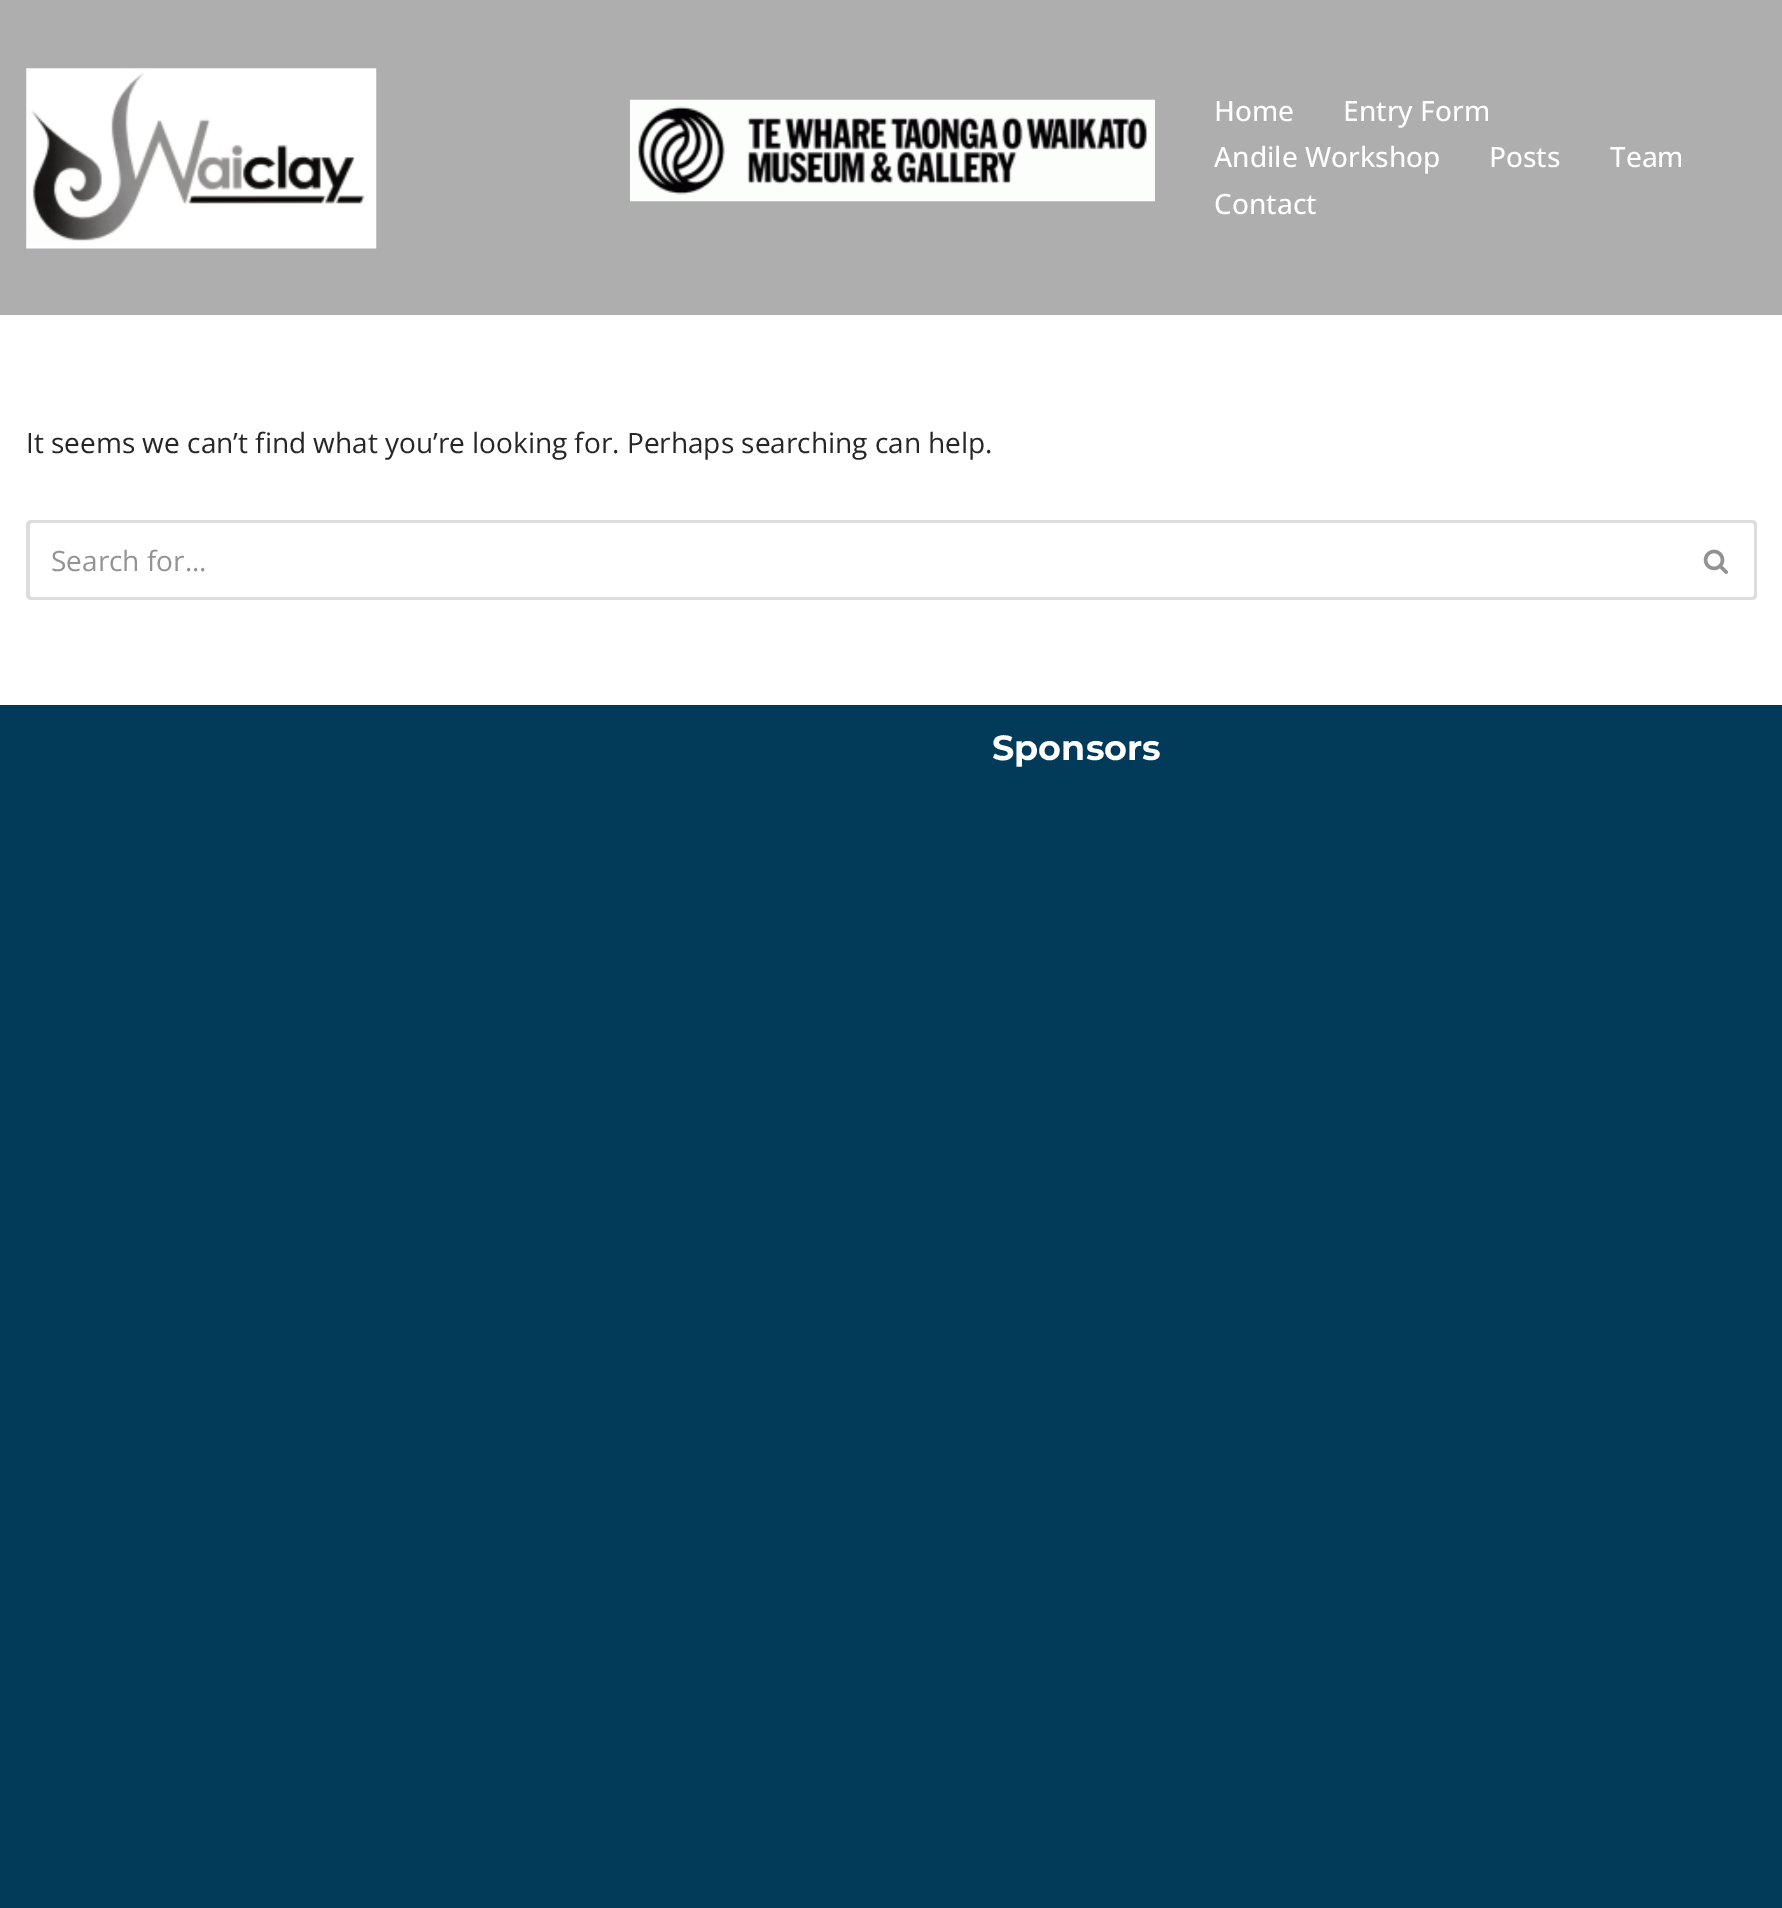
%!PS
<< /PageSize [1782 1908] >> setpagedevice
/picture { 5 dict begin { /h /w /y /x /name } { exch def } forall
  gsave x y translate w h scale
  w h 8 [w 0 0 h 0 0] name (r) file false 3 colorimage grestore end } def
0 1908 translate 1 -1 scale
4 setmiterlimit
1 setgray
0 0 1782 1908 rectfill
0.682 setgray
0 0 1782 315 rectfill
(img1.rgb) 26 68 351 181 picture
(img2.rgb) 630 99 525 103 picture
/OpenSans-Medium [28 0 0 -28 0 0] selectfont
1 setgray
1214 121 moveto (Home) show
1343 121 moveto (Entry Form) show
1214 167 moveto (Andile Workshop) show
1489 167 moveto (Posts) show
1610 167 moveto (Team) show
1214 214 moveto (Contact) show
/OpenSans-Regular [28 0 0 -28 0 0] selectfont
0.153 0.149 0.149 setrgbcolor
26 453 moveto (It seems we can’t find what you’re looking for. Perhaps searching can help.) show
0.867 setgray
newpath 32 520 moveto 1678 520 lineto 1678 600 lineto 32 600 lineto 29 600 26 598 26 595 curveto 26 525 lineto 26 522 29 520 32 520 curveto closepath 32 523 moveto 1678 523 lineto 1678 597 lineto 32 597 lineto 31 597 30 596 30 595 curveto 30 525 lineto 30 524 31 523 32 523 curveto closepath eofill
0.576 setgray
51 571 moveto (Search for...) show
0.867 setgray
newpath 1678 520 moveto 1752 520 lineto 1755 520 1757 522 1757 525 curveto 1757 595 lineto 1757 598 1755 600 1752 600 curveto 1678 600 lineto closepath 1678 523 moveto 1752 523 lineto 1753 523 1754 524 1754 525 curveto 1754 595 lineto 1754 596 1753 597 1752 597 curveto 1678 597 lineto closepath eofill
(img3.rgb) 1703 549 25 25 picture
0.004 0.231 0.349 setrgbcolor
0 705 1782 1203 rectfill
/Montserrat-Bold [35 0 0 -35 0 0] selectfont
1 setgray
992 760 moveto (Sponsors) show
showpage
